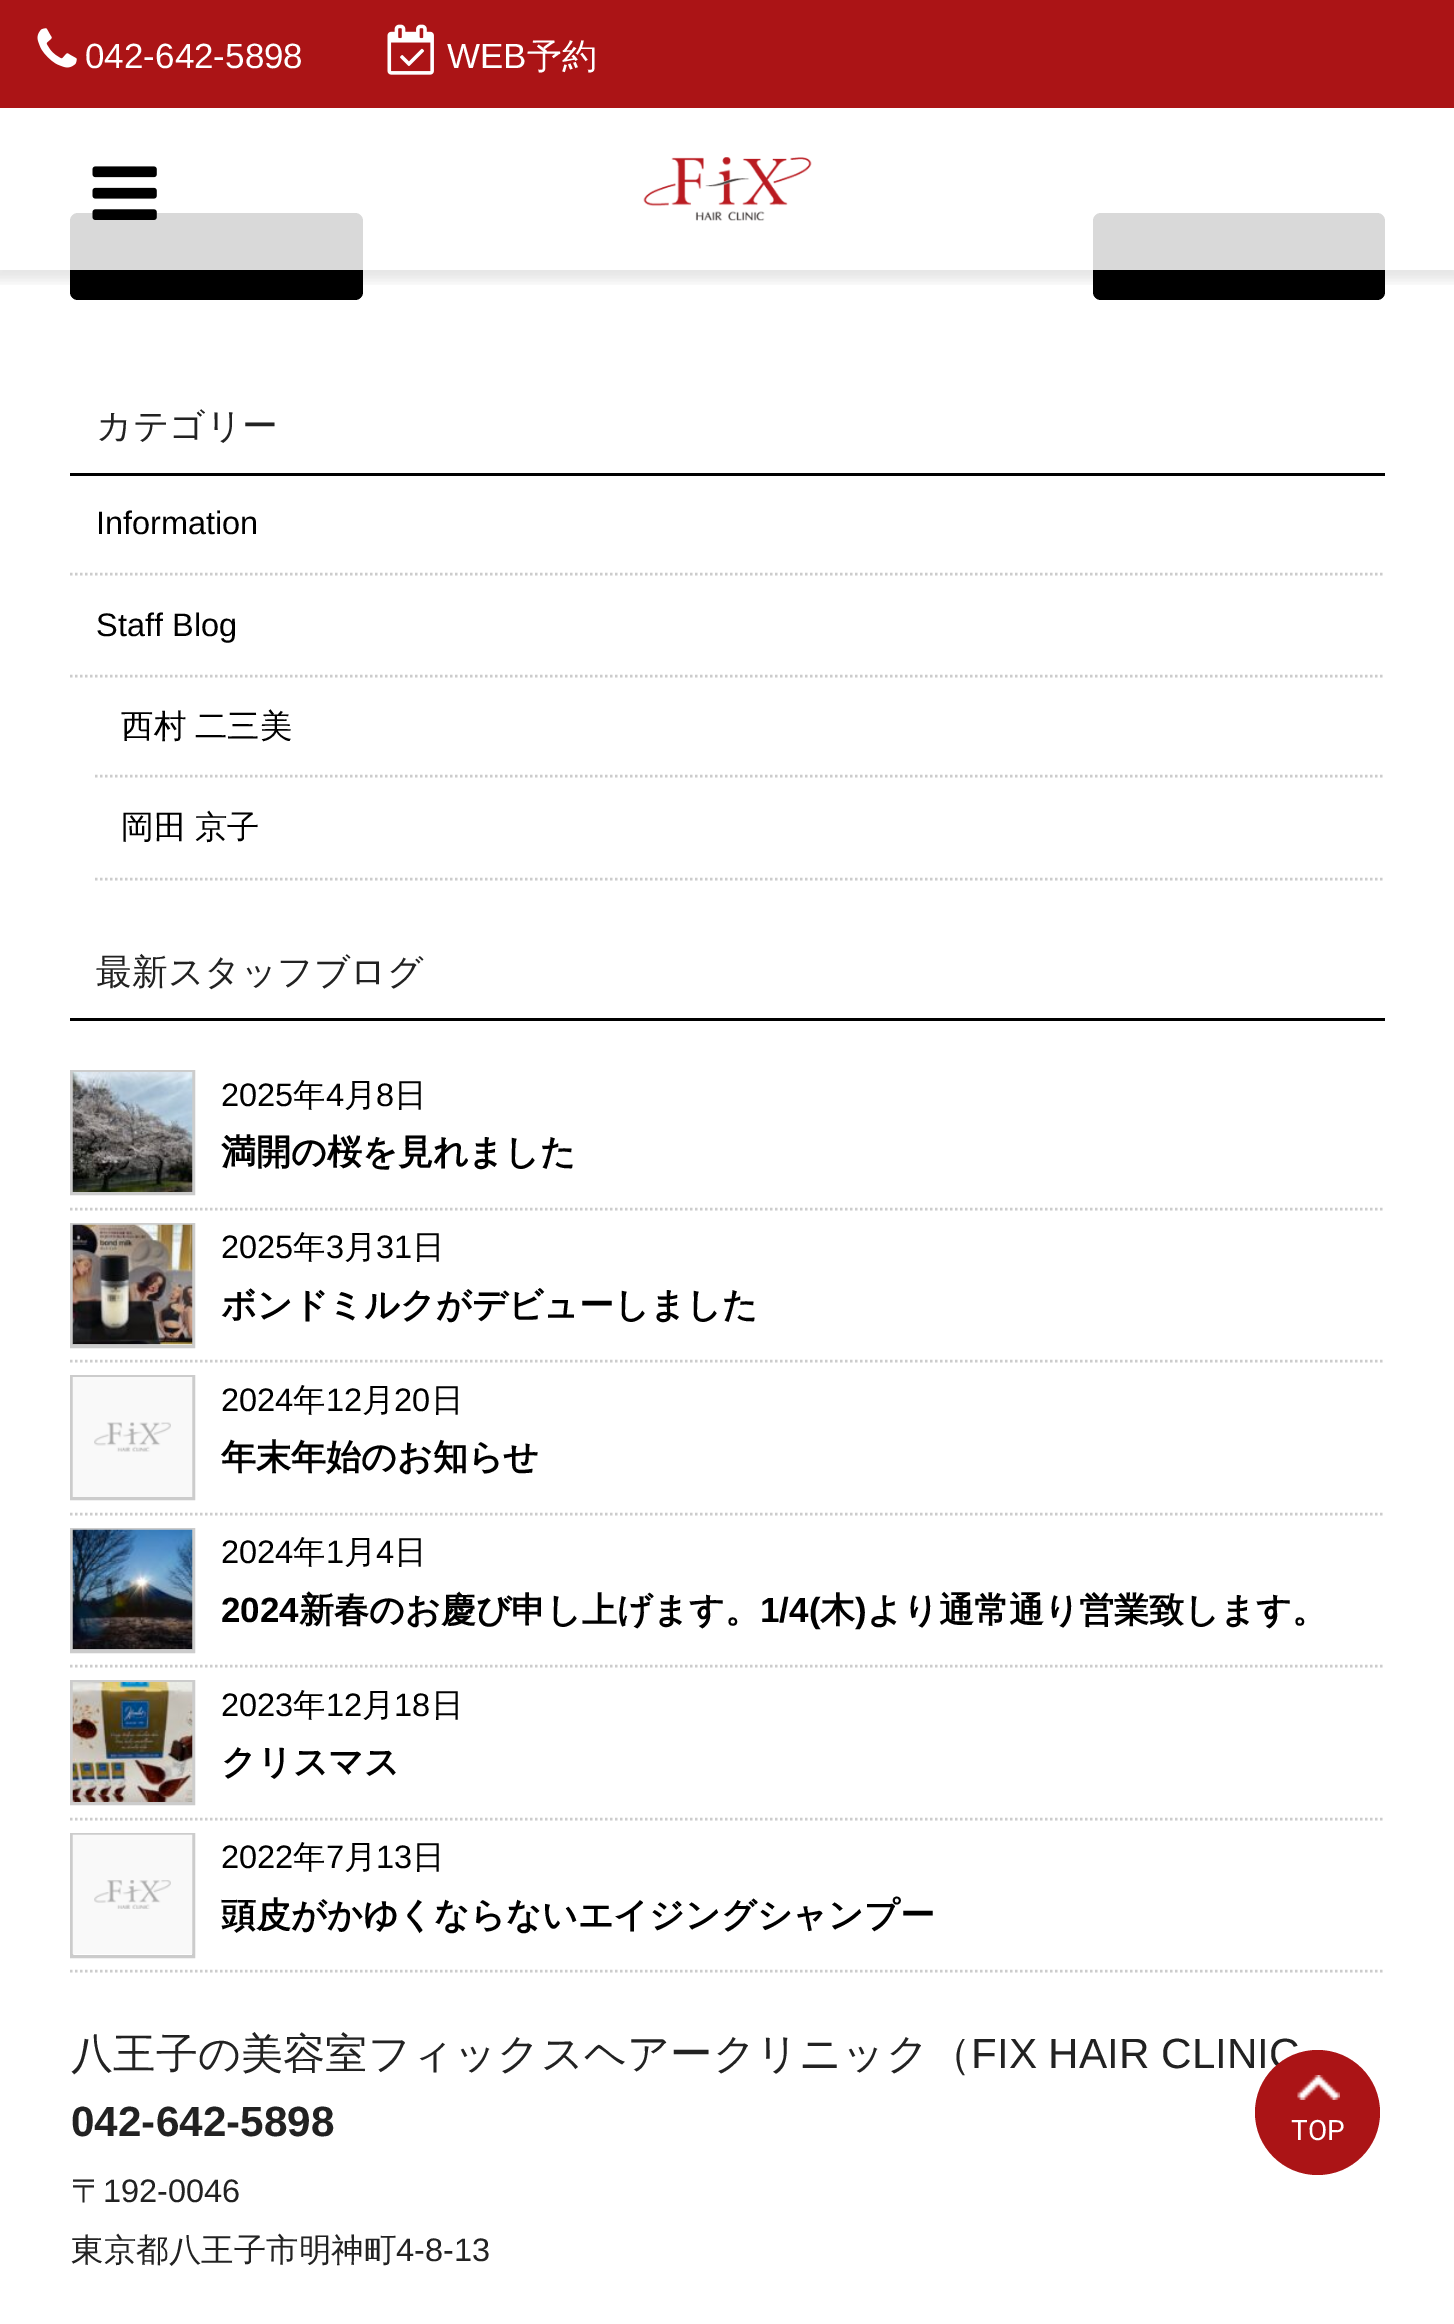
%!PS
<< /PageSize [1454 2324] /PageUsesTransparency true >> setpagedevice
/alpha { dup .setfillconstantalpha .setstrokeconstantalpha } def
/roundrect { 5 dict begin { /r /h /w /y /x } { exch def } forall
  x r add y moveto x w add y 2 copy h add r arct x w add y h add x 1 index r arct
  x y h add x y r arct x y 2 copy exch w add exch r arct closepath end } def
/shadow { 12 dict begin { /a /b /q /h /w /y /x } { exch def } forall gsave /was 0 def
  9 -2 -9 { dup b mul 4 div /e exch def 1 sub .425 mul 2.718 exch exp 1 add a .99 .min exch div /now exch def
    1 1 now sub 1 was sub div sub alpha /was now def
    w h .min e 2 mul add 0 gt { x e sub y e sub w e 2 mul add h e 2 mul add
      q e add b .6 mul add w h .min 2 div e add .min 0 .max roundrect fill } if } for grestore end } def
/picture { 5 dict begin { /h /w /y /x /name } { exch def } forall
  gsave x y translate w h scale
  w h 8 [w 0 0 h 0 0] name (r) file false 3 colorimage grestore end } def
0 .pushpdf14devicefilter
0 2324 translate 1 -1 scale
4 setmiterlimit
1 setgray
0 0 1454 2324 rectfill
0 setgray
70 213 293 87 8 roundrect fill
1093 213 292 87 8 roundrect fill
gsave
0 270 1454 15 rectclip
-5 0 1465 280 0 6 0.1 shadow
grestore
0.85 alpha
1 setgray
70 213 1315 57 rectfill
1 alpha
0.671 0.078 0.086 setrgbcolor
0 0 1454 108 rectfill
(img1.rgb) 37 28 40 40 picture
/LiberationSans-Regular [35 0 0 -35 0 0] selectfont
1 setgray
85 68 moveto (042-642-5898) show
(img2.rgb) 387 24 47 51 picture
447 68 moveto (WEB) show
/WenQuanYiZenHei-Medium [35 0 0 -35 0 0] selectfont
527 68 moveto (予約) show
(img3.rgb) 92 166 65 54 picture
(img4.rgb) 643 157 169 64 picture
0 setgray
70 473 1315 3 rectfill
/WenQuanYiZenHei-Medium [35.75 0 0 -35.75 0 0] selectfont
0.133 setgray
96 438 moveto (カテゴリー) show
0.8 setgray
2.5 setlinewidth
[2.5 2.5] 0 setdash
newpath 70 574 moveto 1385 574 lineto stroke
/LiberationSans-Regular [32.5 0 0 -32.5 0 0] selectfont
0 setgray
96 534 moveto (Information) show
0.8 setgray
newpath 70 676 moveto 1385 676 lineto stroke
0 setgray
96 636 moveto (Staff Blog) show
0.8 setgray
newpath 95 776 moveto 1385 776 lineto stroke
/WenQuanYiZenHei-Medium [32.5 0 0 -32.5 0 0] selectfont
0 setgray
121 737 moveto -1 0 32 (西村 二三美) widthshow
0.8 setgray
newpath 95 879 moveto 1385 879 lineto stroke
0 setgray
121 838 moveto -1 0 32 (岡田 京子) widthshow
70 1018 1315 3 rectfill
/WenQuanYiZenHei-Medium [35.75 0 0 -35.75 0 0] selectfont
0.133 setgray
96 984 moveto (最新スタッフブログ) show
0.8 setgray
newpath 70 1209 moveto 1385 1209 lineto stroke
3 setlinewidth
[] 0 setdash
71.5 1071.5 122 122 rectstroke
(img5.rgb) 72 1072 121 120 picture
/LiberationSans-Regular [32.5 0 0 -32.5 0 0] selectfont
0 setgray
221 1106 moveto (2025) show
/WenQuanYiZenHei-Medium [32.5 0 0 -32.5 0 0] selectfont
293 1106 moveto (年) show
/LiberationSans-Regular [32.5 0 0 -32.5 0 0] selectfont
326 1106 moveto (4) show
/WenQuanYiZenHei-Medium [32.5 0 0 -32.5 0 0] selectfont
344 1106 moveto (月) show
/LiberationSans-Regular [32.5 0 0 -32.5 0 0] selectfont
376 1106 moveto (8) show
/WenQuanYiZenHei-Medium [32.5 0 0 -32.5 0 0] selectfont
394 1106 moveto (日) show
/WenQuanYiZenHei-Bold [35 0 0 -35 0 0] selectfont
221 1164 moveto (満開の桜を見れました) show
0.8 setgray
2.5 setlinewidth
[2.5 2.5] 0 setdash
newpath 70 1361 moveto 1385 1361 lineto stroke
3 setlinewidth
[] 0 setdash
71.5 1224.5 122 122 rectstroke
(img6.rgb) 72 1224 121 121 picture
/LiberationSans-Regular [32.5 0 0 -32.5 0 0] selectfont
0 setgray
221 1258 moveto (2025) show
/WenQuanYiZenHei-Medium [32.5 0 0 -32.5 0 0] selectfont
293 1258 moveto (年) show
/LiberationSans-Regular [32.5 0 0 -32.5 0 0] selectfont
326 1258 moveto (3) show
/WenQuanYiZenHei-Medium [32.5 0 0 -32.5 0 0] selectfont
344 1258 moveto (月) show
/LiberationSans-Regular [32.5 0 0 -32.5 0 0] selectfont
376 1258 moveto (31) show
/WenQuanYiZenHei-Medium [32.5 0 0 -32.5 0 0] selectfont
412 1258 moveto (日) show
/WenQuanYiZenHei-Bold [35 0 0 -35 0 0] selectfont
221 1317 moveto (ボンドミルクがデビューしました) show
0.8 setgray
2.5 setlinewidth
[2.5 2.5] 0 setdash
newpath 70 1514 moveto 1385 1514 lineto stroke
3 setlinewidth
[] 0 setdash
71.5 1376.5 122 122 rectstroke
(img7.rgb) 72 1377 121 120 picture
/LiberationSans-Regular [32.5 0 0 -32.5 0 0] selectfont
0 setgray
221 1411 moveto (2024) show
/WenQuanYiZenHei-Medium [32.5 0 0 -32.5 0 0] selectfont
293 1411 moveto (年) show
/LiberationSans-Regular [32.5 0 0 -32.5 0 0] selectfont
326 1411 moveto (12) show
/WenQuanYiZenHei-Medium [32.5 0 0 -32.5 0 0] selectfont
362 1411 moveto (月) show
/LiberationSans-Regular [32.5 0 0 -32.5 0 0] selectfont
394 1411 moveto (20) show
/WenQuanYiZenHei-Medium [32.5 0 0 -32.5 0 0] selectfont
431 1411 moveto (日) show
/WenQuanYiZenHei-Bold [35 0 0 -35 0 0] selectfont
221 1469 moveto (年末年始のお知らせ) show
0.8 setgray
2.5 setlinewidth
[2.5 2.5] 0 setdash
newpath 70 1666 moveto 1385 1666 lineto stroke
3 setlinewidth
[] 0 setdash
71.5 1529.5 122 122 rectstroke
(img8.rgb) 72 1529 121 121 picture
/LiberationSans-Regular [32.5 0 0 -32.5 0 0] selectfont
0 setgray
221 1563 moveto (2024) show
/WenQuanYiZenHei-Medium [32.5 0 0 -32.5 0 0] selectfont
293 1563 moveto (年) show
/LiberationSans-Regular [32.5 0 0 -32.5 0 0] selectfont
326 1563 moveto (1) show
/WenQuanYiZenHei-Medium [32.5 0 0 -32.5 0 0] selectfont
344 1563 moveto (月) show
/LiberationSans-Regular [32.5 0 0 -32.5 0 0] selectfont
376 1563 moveto (4) show
/WenQuanYiZenHei-Medium [32.5 0 0 -32.5 0 0] selectfont
394 1563 moveto (日) show
/LiberationSans-Bold [35 0 0 -35 0 0] selectfont
221 1622 moveto (2024) show
/WenQuanYiZenHei-Bold [35 0 0 -35 0 0] selectfont
299 1622 moveto (新春のお慶び申し上げます。) show
/LiberationSans-Bold [35 0 0 -35 0 0] selectfont
760 1622 moveto (1/4\() show
/WenQuanYiZenHei-Bold [35 0 0 -35 0 0] selectfont
820 1622 moveto (木) show
/LiberationSans-Bold [35 0 0 -35 0 0] selectfont
855 1622 moveto (\)) show
/WenQuanYiZenHei-Bold [35 0 0 -35 0 0] selectfont
867 1622 moveto (より通常通り営業致します。) show
0.8 setgray
2.5 setlinewidth
[2.5 2.5] 0 setdash
newpath 70 1819 moveto 1385 1819 lineto stroke
3 setlinewidth
[] 0 setdash
71.5 1681.5 122 122 rectstroke
(img9.rgb) 72 1682 121 120 picture
/LiberationSans-Regular [32.5 0 0 -32.5 0 0] selectfont
0 setgray
221 1716 moveto (2023) show
/WenQuanYiZenHei-Medium [32.5 0 0 -32.5 0 0] selectfont
293 1716 moveto (年) show
/LiberationSans-Regular [32.5 0 0 -32.5 0 0] selectfont
326 1716 moveto (12) show
/WenQuanYiZenHei-Medium [32.5 0 0 -32.5 0 0] selectfont
362 1716 moveto (月) show
/LiberationSans-Regular [32.5 0 0 -32.5 0 0] selectfont
394 1716 moveto (18) show
/WenQuanYiZenHei-Medium [32.5 0 0 -32.5 0 0] selectfont
431 1716 moveto (日) show
/WenQuanYiZenHei-Bold [35 0 0 -35 0 0] selectfont
221 1774 moveto (クリスマス) show
0.8 setgray
2.5 setlinewidth
[2.5 2.5] 0 setdash
newpath 70 1971 moveto 1385 1971 lineto stroke
3 setlinewidth
[] 0 setdash
71.5 1834.5 122 122 rectstroke
(img10.rgb) 72 1834 121 120 picture
/LiberationSans-Regular [32.5 0 0 -32.5 0 0] selectfont
0 setgray
221 1868 moveto (2022) show
/WenQuanYiZenHei-Medium [32.5 0 0 -32.5 0 0] selectfont
293 1868 moveto (年) show
/LiberationSans-Regular [32.5 0 0 -32.5 0 0] selectfont
326 1868 moveto (7) show
/WenQuanYiZenHei-Medium [32.5 0 0 -32.5 0 0] selectfont
344 1868 moveto (月) show
/LiberationSans-Regular [32.5 0 0 -32.5 0 0] selectfont
376 1868 moveto (13) show
/WenQuanYiZenHei-Medium [32.5 0 0 -32.5 0 0] selectfont
412 1868 moveto (日) show
/WenQuanYiZenHei-Bold [35 0 0 -35 0 0] selectfont
221 1927 moveto (頭皮がかゆくならないエイジングシャンプー) show
/WenQuanYiZenHei-Medium [42.25 0 0 -42.25 0 0] selectfont
0.133 setgray
71 2068 moveto (八王子の美容室フィックスヘアークリニック（) show
/LiberationSans-Regular [42.25 0 0 -42.25 0 0] selectfont
971 2068 moveto (FIX HAIR CLINIC) show
/LiberationSans-Bold [42.25 0 0 -42.25 0 0] selectfont
71 2136 moveto (042-642-5898) show
/WenQuanYiZenHei-Medium [32.5 0 0 -32.5 0 0] selectfont
71 2202 moveto (〒) show
/LiberationSans-Regular [32.5 0 0 -32.5 0 0] selectfont
103 2202 moveto (192-0046) show
/WenQuanYiZenHei-Medium [32.5 0 0 -32.5 0 0] selectfont
71 2261 moveto (東京都八王子市明神町) show
/LiberationSans-Regular [32.5 0 0 -32.5 0 0] selectfont
396 2261 moveto (4-8-13) show
0.671 0.078 0.086 setrgbcolor
newpath 1317.5 2112.5 62.5 0 360 arc closepath fill
(img11.rgb) 1297 2075 43 25 picture
/Roboto-Regular [28 0 0 -28 0 0] selectfont
1 setgray
1291 2140 moveto (TOP) show
.poppdf14devicefilter showpage
